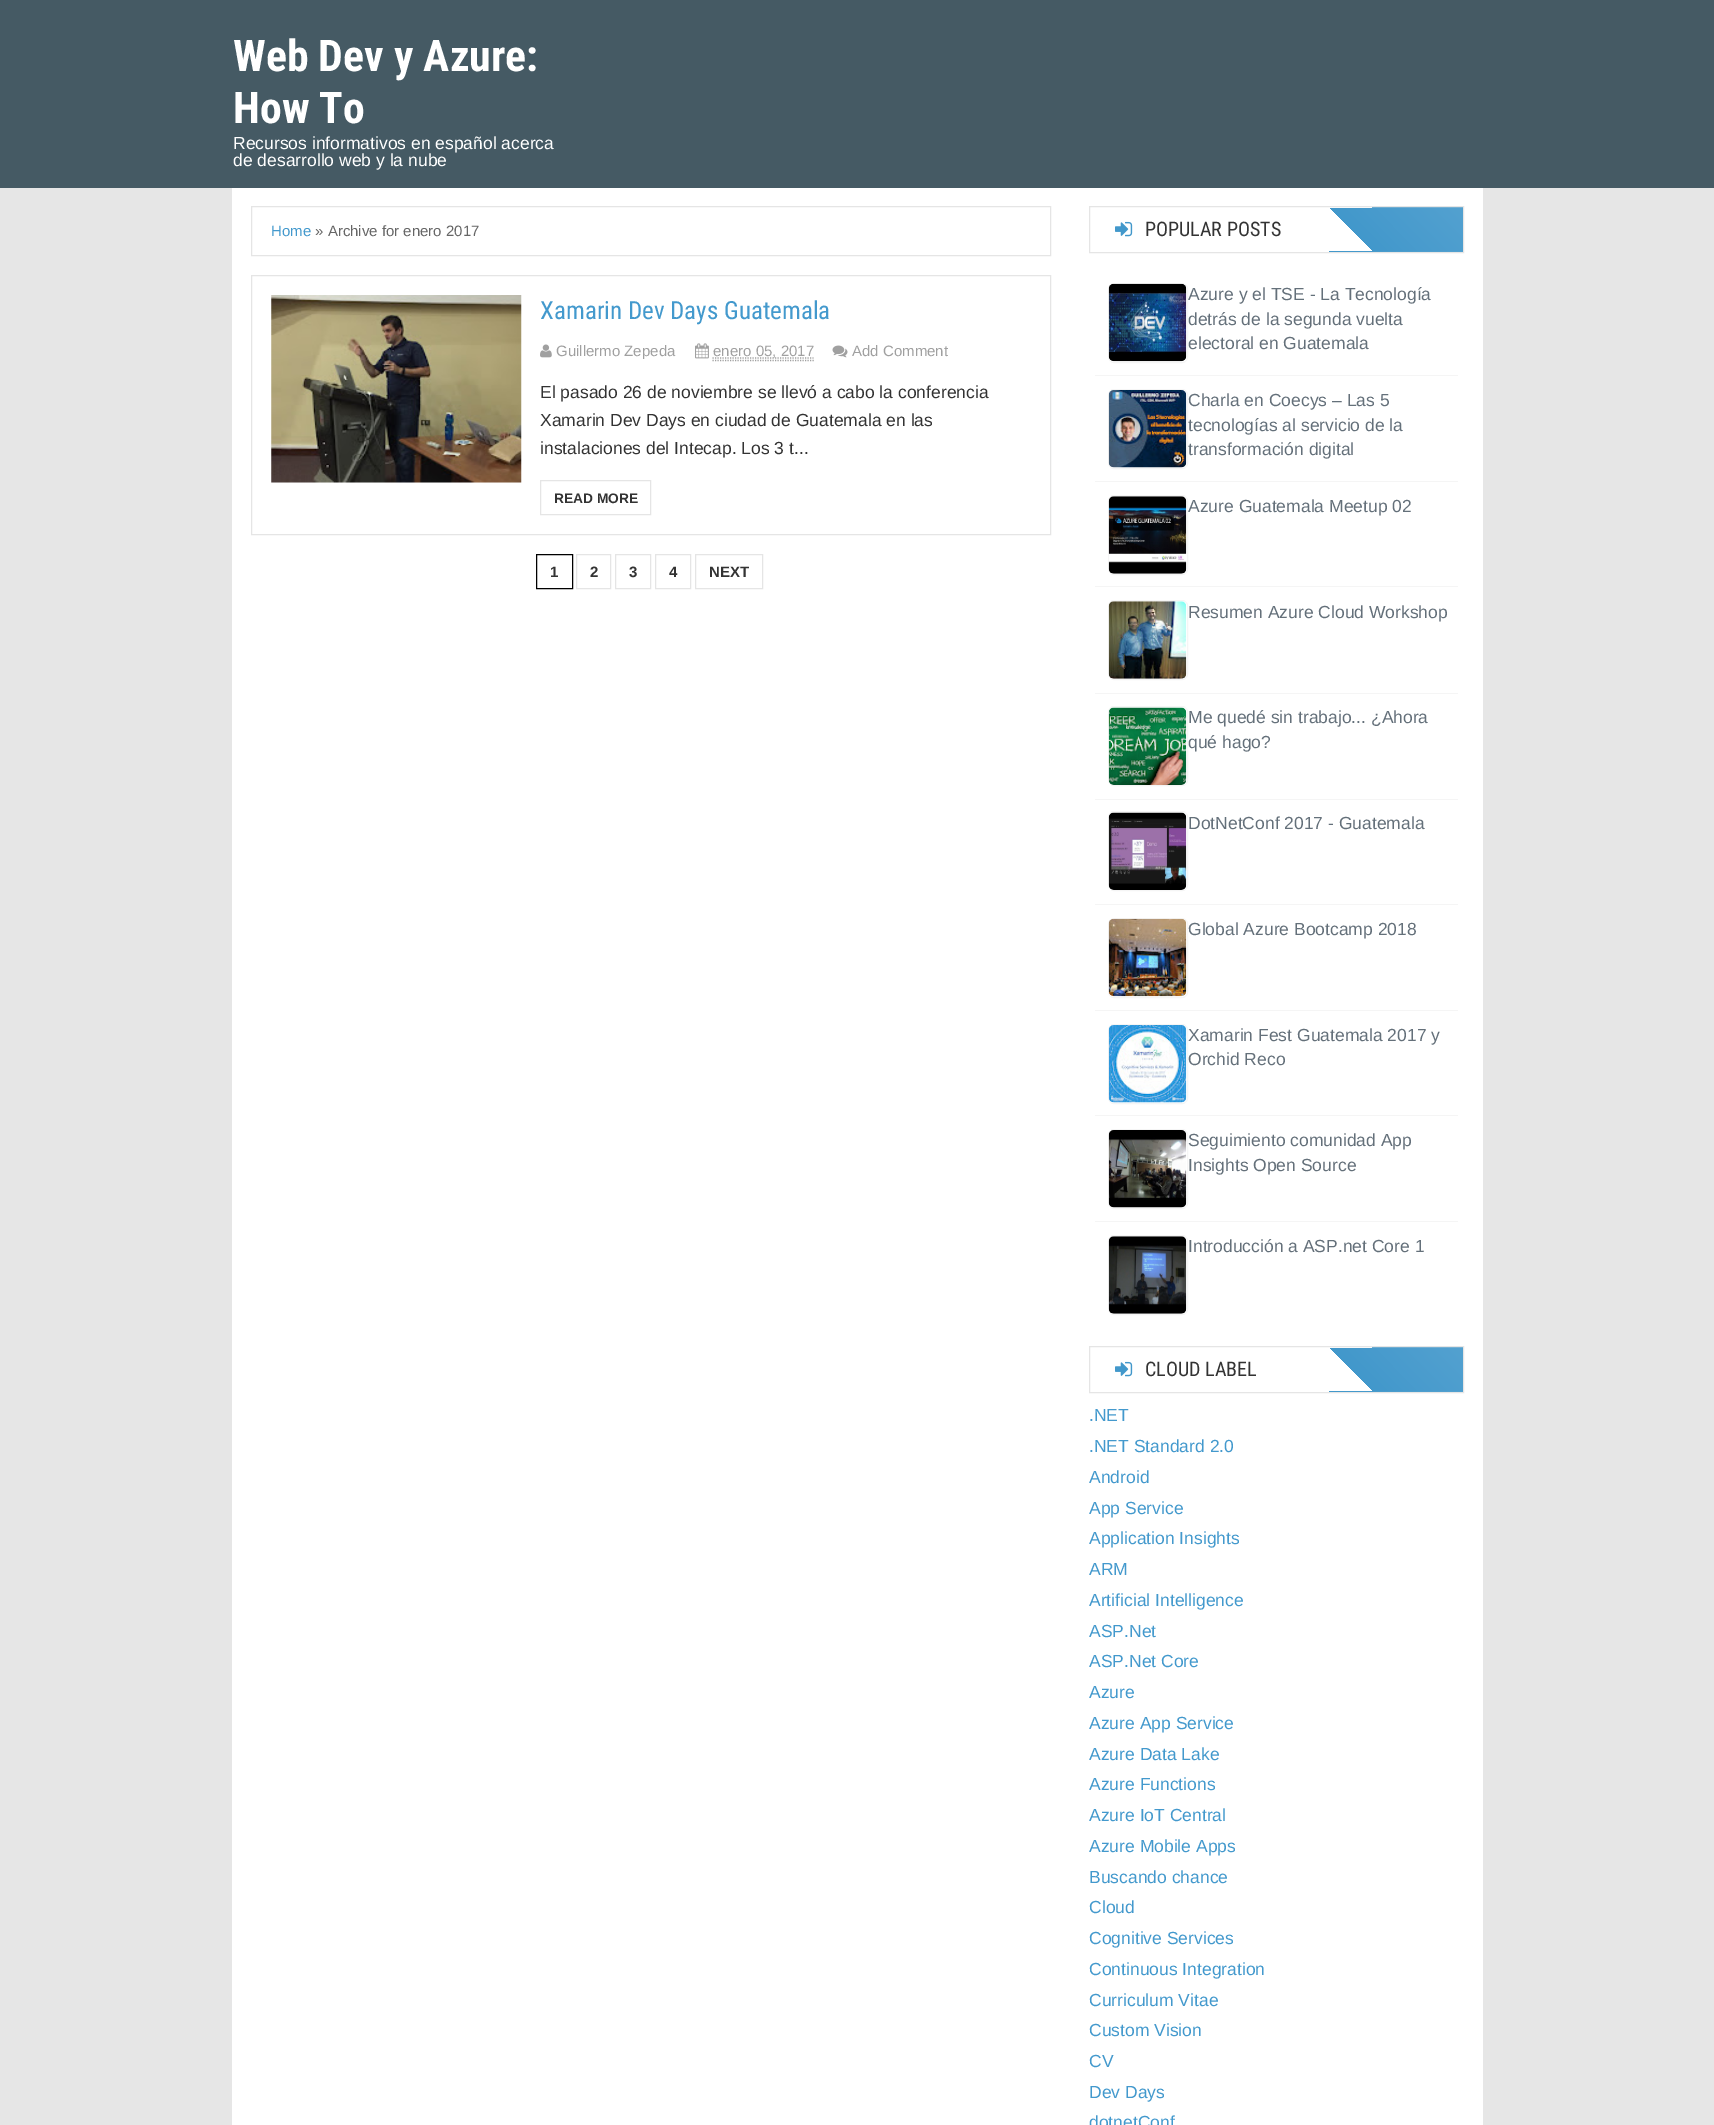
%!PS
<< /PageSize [1714 2125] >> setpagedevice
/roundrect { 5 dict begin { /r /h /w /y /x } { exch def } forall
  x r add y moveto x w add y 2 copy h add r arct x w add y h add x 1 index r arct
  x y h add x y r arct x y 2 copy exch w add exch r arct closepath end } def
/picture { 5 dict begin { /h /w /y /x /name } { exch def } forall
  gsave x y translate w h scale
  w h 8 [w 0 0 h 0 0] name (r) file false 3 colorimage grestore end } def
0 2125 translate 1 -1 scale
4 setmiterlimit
0.902 setgray
0 0 1714 2125 rectfill
0.271 0.353 0.392 setrgbcolor
0 0 1714 188 rectfill
/RobotoCondensed-Bold [43.75 0 0 -43.75 0 0] selectfont
1 setgray
233 71 moveto (Web Dev y Azure:) show
233 123 moveto (How To) show
/LiberationSans-Regular [17.5 0 0 -17.5 0 0] selectfont
233 149 moveto (Recursos informativos en español acerca) show
233 166 moveto (de desarrollo web y la nube) show
232 188 1251 1937 rectfill
0.898 setgray
251.5 206.5 799 49 rectstroke
/LiberationSans-Regular [15 0 0 -15 0 0] selectfont
0.263 0.6 0.804 setrgbcolor
271 236 moveto (Home) show
0.4 setgray
315 236 moveto (» Archive for enero 2017) show
0.898 setgray
251.5 275.5 799 259 rectstroke
0.984 setgray
271 295 250 188 rectfill
(img1.rgb) 271 295 251 188 picture
/RobotoCondensed-Regular [25 0 0 -25 0 0] selectfont
0.263 0.6 0.804 setrgbcolor
540 319 moveto (Xamarin Dev Days Guatemala) show
(img2.rgb) 540 344 12 14 picture
/LiberationSans-Regular [15 0 0 -15 0 0] selectfont
0.627 setgray
556 356 moveto (Guillermo Zepeda) show
(img3.rgb) 695 343 14 16 picture
1.2 setlinewidth
[1.25 1.25] 0 setdash
newpath 712.5 358 moveto 813.5 358 lineto stroke
713 356 moveto (enero 05, 2017) show
newpath 712.5 360.5 moveto 814 360.5 lineto stroke
(img4.rgb) 832 345 16 13 picture
852 356 moveto (Add Comment) show
/LiberationSans-Regular [17.5 0 0 -17.5 0 0] selectfont
0.2 setgray
540 398 moveto (El pasado 26 de noviembre se llevó a cabo la conferencia) show
540 426 moveto (Xamarin Dev Days en ciudad de Guatemala en las) show
540 454 moveto (instalaciones del Intecap. Los 3 t...) show
0.898 setgray
1 setlinewidth
[] 0 setdash
540.5 480.5 110 34 rectstroke
/LiberationSans-Bold [13.75 0 0 -13.75 0 0] selectfont
0.2 setgray
554 503 moveto (READ MORE) show
0 setgray
536.5 554.5 36 34 rectstroke
/LiberationSans-Bold [15 0 0 -15 0 0] selectfont
0.2 setgray
550 577 moveto (1) show
0.898 setgray
576.5 554.5 34 34 rectstroke
0.2 setgray
590 577 moveto (2) show
0.898 setgray
615.5 554.5 35 34 rectstroke
0.2 setgray
629 577 moveto (3) show
0.898 setgray
655.5 554.5 35 34 rectstroke
0.2 setgray
669 577 moveto (4) show
0.898 setgray
695.5 554.5 67 34 rectstroke
0.2 setgray
709 577 moveto (NEXT) show
gsave newpath 1372 207 moveto 1463 207 lineto 1463 208 lineto 1372 208 lineto closepath clip newpath
<< /ShadingType 2 /ColorSpace /DeviceRGB /Coords [1172 290 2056 -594] /Extend [true true] /Function << /FunctionType 3 /Domain [0 1] /Functions [<< /FunctionType 2 /Domain [0 1] /C0 [1 1 1] /C1 [1 1 1] /N 1 >> << /FunctionType 2 /Domain [0 1] /C0 [0.259 0.596 0.796] /C1 [1 1 1] /N 1 >>] /Bounds [0.16] /Encode [0 1 0 1] >> >> shfill grestore
gsave newpath 1330 208 moveto 1463 208 lineto 1463 251 lineto 1330 251 lineto closepath clip newpath
<< /ShadingType 2 /ColorSpace /DeviceRGB /Coords [1172 333 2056 -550] /Extend [true true] /Function << /FunctionType 3 /Domain [0 1] /Functions [<< /FunctionType 2 /Domain [0 1] /C0 [1 1 1] /C1 [1 1 1] /N 1 >> << /FunctionType 2 /Domain [0 1] /C0 [0.259 0.596 0.796] /C1 [1 1 1] /N 1 >>] /Bounds [0.16] /Encode [0 1 0 1] >> >> shfill grestore
gsave newpath 1329 251 moveto 1463 251 lineto 1463 252 lineto 1329 252 lineto closepath clip newpath
<< /ShadingType 2 /ColorSpace /DeviceRGB /Coords [1172 377 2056 -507] /Extend [true true] /Function << /FunctionType 3 /Domain [0 1] /Functions [<< /FunctionType 2 /Domain [0 1] /C0 [1 1 1] /C1 [1 1 1] /N 1 >> << /FunctionType 2 /Domain [0 1] /C0 [0.259 0.596 0.796] /C1 [1 1 1] /N 1 >>] /Bounds [0.16] /Encode [0 1 0 1] >> >> shfill grestore
0.898 setgray
1089.5 206.5 374 46 rectstroke
(img5.rgb) 1115 221 18 16 picture
/RobotoCondensed-Regular [20 0 0 -20 0 0] selectfont
0.2 setgray
1145 236 moveto (POPULAR POSTS) show
0.961 setgray
1095 375 363 1 rectfill
1108.5 283.5 79 79 5.5 roundrect stroke
(img6.rgb) 1108 283 79 79 picture
/LiberationSans-Regular [17.5 0 0 -17.5 0 0] selectfont
0.392 0.439 0.478 setrgbcolor
1188 300 moveto (Azure y el TSE - La Tecnología) show
1188 325 moveto (detrás de la segunda vuelta) show
1188 349 moveto (electoral en Guatemala) show
0.961 setgray
1095 481 363 1 rectfill
1108.5 389.5 79 79 5.5 roundrect stroke
(img7.rgb) 1108 390 79 78 picture
0.392 0.439 0.478 setrgbcolor
1188 406 moveto (Charla en Coecys – Las 5) show
1188 431 moveto (tecnologías al servicio de la) show
1188 455 moveto (transformación digital) show
0.961 setgray
1095 586 363 1 rectfill
1108.5 495.5 79 79 5.5 roundrect stroke
(img8.rgb) 1108 496 79 78 picture
0.392 0.439 0.478 setrgbcolor
1188 512 moveto (Azure Guatemala Meetup 02) show
0.961 setgray
1095 693 363 1 rectfill
1108.5 600.5 79 79 5.5 roundrect stroke
(img9.rgb) 1108 601 79 78 picture
0.392 0.439 0.478 setrgbcolor
1188 618 moveto (Resumen Azure Cloud Workshop) show
0.961 setgray
1095 799 363 1 rectfill
1108.5 706.5 79 79 5.5 roundrect stroke
(img10.rgb) 1108 707 79 78 picture
0.392 0.439 0.478 setrgbcolor
1188 723 moveto (Me quedé sin trabajo... ¿Ahora) show
1188 748 moveto (qué hago?) show
0.961 setgray
1095 904 363 1 rectfill
1108.5 811.5 79 79 5.5 roundrect stroke
(img11.rgb) 1108 812 79 78 picture
0.392 0.439 0.478 setrgbcolor
1188 829 moveto (DotNetConf 2017 - Guatemala) show
0.961 setgray
1095 1010 363 1 rectfill
1108.5 918.5 79 79 5.5 roundrect stroke
(img12.rgb) 1108 918 79 79 picture
0.392 0.439 0.478 setrgbcolor
1188 935 moveto (Global Azure Bootcamp 2018) show
0.961 setgray
1095 1115 363 1 rectfill
1108.5 1024.5 79 79 5.5 roundrect stroke
(img13.rgb) 1108 1025 79 78 picture
0.392 0.439 0.478 setrgbcolor
1188 1041 moveto (Xamarin Fest Guatemala 2017 y) show
1188 1065 moveto (Orchid Reco) show
0.961 setgray
1095 1221 363 1 rectfill
1108.5 1129.5 79 79 5.5 roundrect stroke
(img14.rgb) 1108 1130 79 78 picture
0.392 0.439 0.478 setrgbcolor
1188 1146 moveto (Seguimiento comunidad App) show
1188 1171 moveto (Insights Open Source) show
0.961 setgray
1108.5 1235.5 79 79 5.5 roundrect stroke
(img15.rgb) 1108 1236 79 78 picture
0.392 0.439 0.478 setrgbcolor
1188 1252 moveto (Introducción a ASP.net Core 1) show
gsave newpath 1372 1347 moveto 1463 1347 lineto 1463 1348 lineto 1372 1348 lineto closepath clip newpath
<< /ShadingType 2 /ColorSpace /DeviceRGB /Coords [1172 1430 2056 546] /Extend [true true] /Function << /FunctionType 3 /Domain [0 1] /Functions [<< /FunctionType 2 /Domain [0 1] /C0 [1 1 1] /C1 [1 1 1] /N 1 >> << /FunctionType 2 /Domain [0 1] /C0 [0.259 0.596 0.796] /C1 [1 1 1] /N 1 >>] /Bounds [0.16] /Encode [0 1 0 1] >> >> shfill grestore
gsave newpath 1330 1348 moveto 1463 1348 lineto 1463 1391 lineto 1330 1391 lineto closepath clip newpath
<< /ShadingType 2 /ColorSpace /DeviceRGB /Coords [1172 1473 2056 590] /Extend [true true] /Function << /FunctionType 3 /Domain [0 1] /Functions [<< /FunctionType 2 /Domain [0 1] /C0 [1 1 1] /C1 [1 1 1] /N 1 >> << /FunctionType 2 /Domain [0 1] /C0 [0.259 0.596 0.796] /C1 [1 1 1] /N 1 >>] /Bounds [0.16] /Encode [0 1 0 1] >> >> shfill grestore
gsave newpath 1329 1391 moveto 1463 1391 lineto 1463 1392 lineto 1329 1392 lineto closepath clip newpath
<< /ShadingType 2 /ColorSpace /DeviceRGB /Coords [1172 1517 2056 633] /Extend [true true] /Function << /FunctionType 3 /Domain [0 1] /Functions [<< /FunctionType 2 /Domain [0 1] /C0 [1 1 1] /C1 [1 1 1] /N 1 >> << /FunctionType 2 /Domain [0 1] /C0 [0.259 0.596 0.796] /C1 [1 1 1] /N 1 >>] /Bounds [0.16] /Encode [0 1 0 1] >> >> shfill grestore
0.898 setgray
1089.5 1346.5 374 46 rectstroke
(img5.rgb) 1115 1361 18 16 picture
/RobotoCondensed-Regular [20 0 0 -20 0 0] selectfont
0.2 setgray
1145 1376 moveto (CLOUD LABEL) show
/LiberationSans-Regular [17.5 0 0 -17.5 0 0] selectfont
0.263 0.6 0.804 setrgbcolor
1089 1421 moveto (.NET) show
1089 1452 moveto (.NET Standard 2.0) show
1089 1483 moveto (Android) show
1089 1514 moveto (App Service) show
1089 1544 moveto (Application Insights) show
1089 1575 moveto (ARM) show
1089 1606 moveto (Artificial Intelligence) show
1089 1637 moveto (ASP.Net) show
1089 1667 moveto (ASP.Net Core) show
1089 1698 moveto (Azure) show
1089 1729 moveto (Azure App Service) show
1089 1760 moveto (Azure Data Lake) show
1089 1790 moveto (Azure Functions) show
1089 1821 moveto (Azure IoT Central) show
1089 1852 moveto (Azure Mobile Apps) show
1089 1883 moveto (Buscando chance) show
1089 1913 moveto (Cloud) show
1089 1944 moveto (Cognitive Services) show
1089 1975 moveto (Continuous Integration) show
1089 2006 moveto (Curriculum Vitae) show
1089 2036 moveto (Custom Vision) show
1089 2067 moveto (CV) show
1089 2098 moveto (Dev Days) show
1089 2128 moveto (dotnetConf) show
showpage
